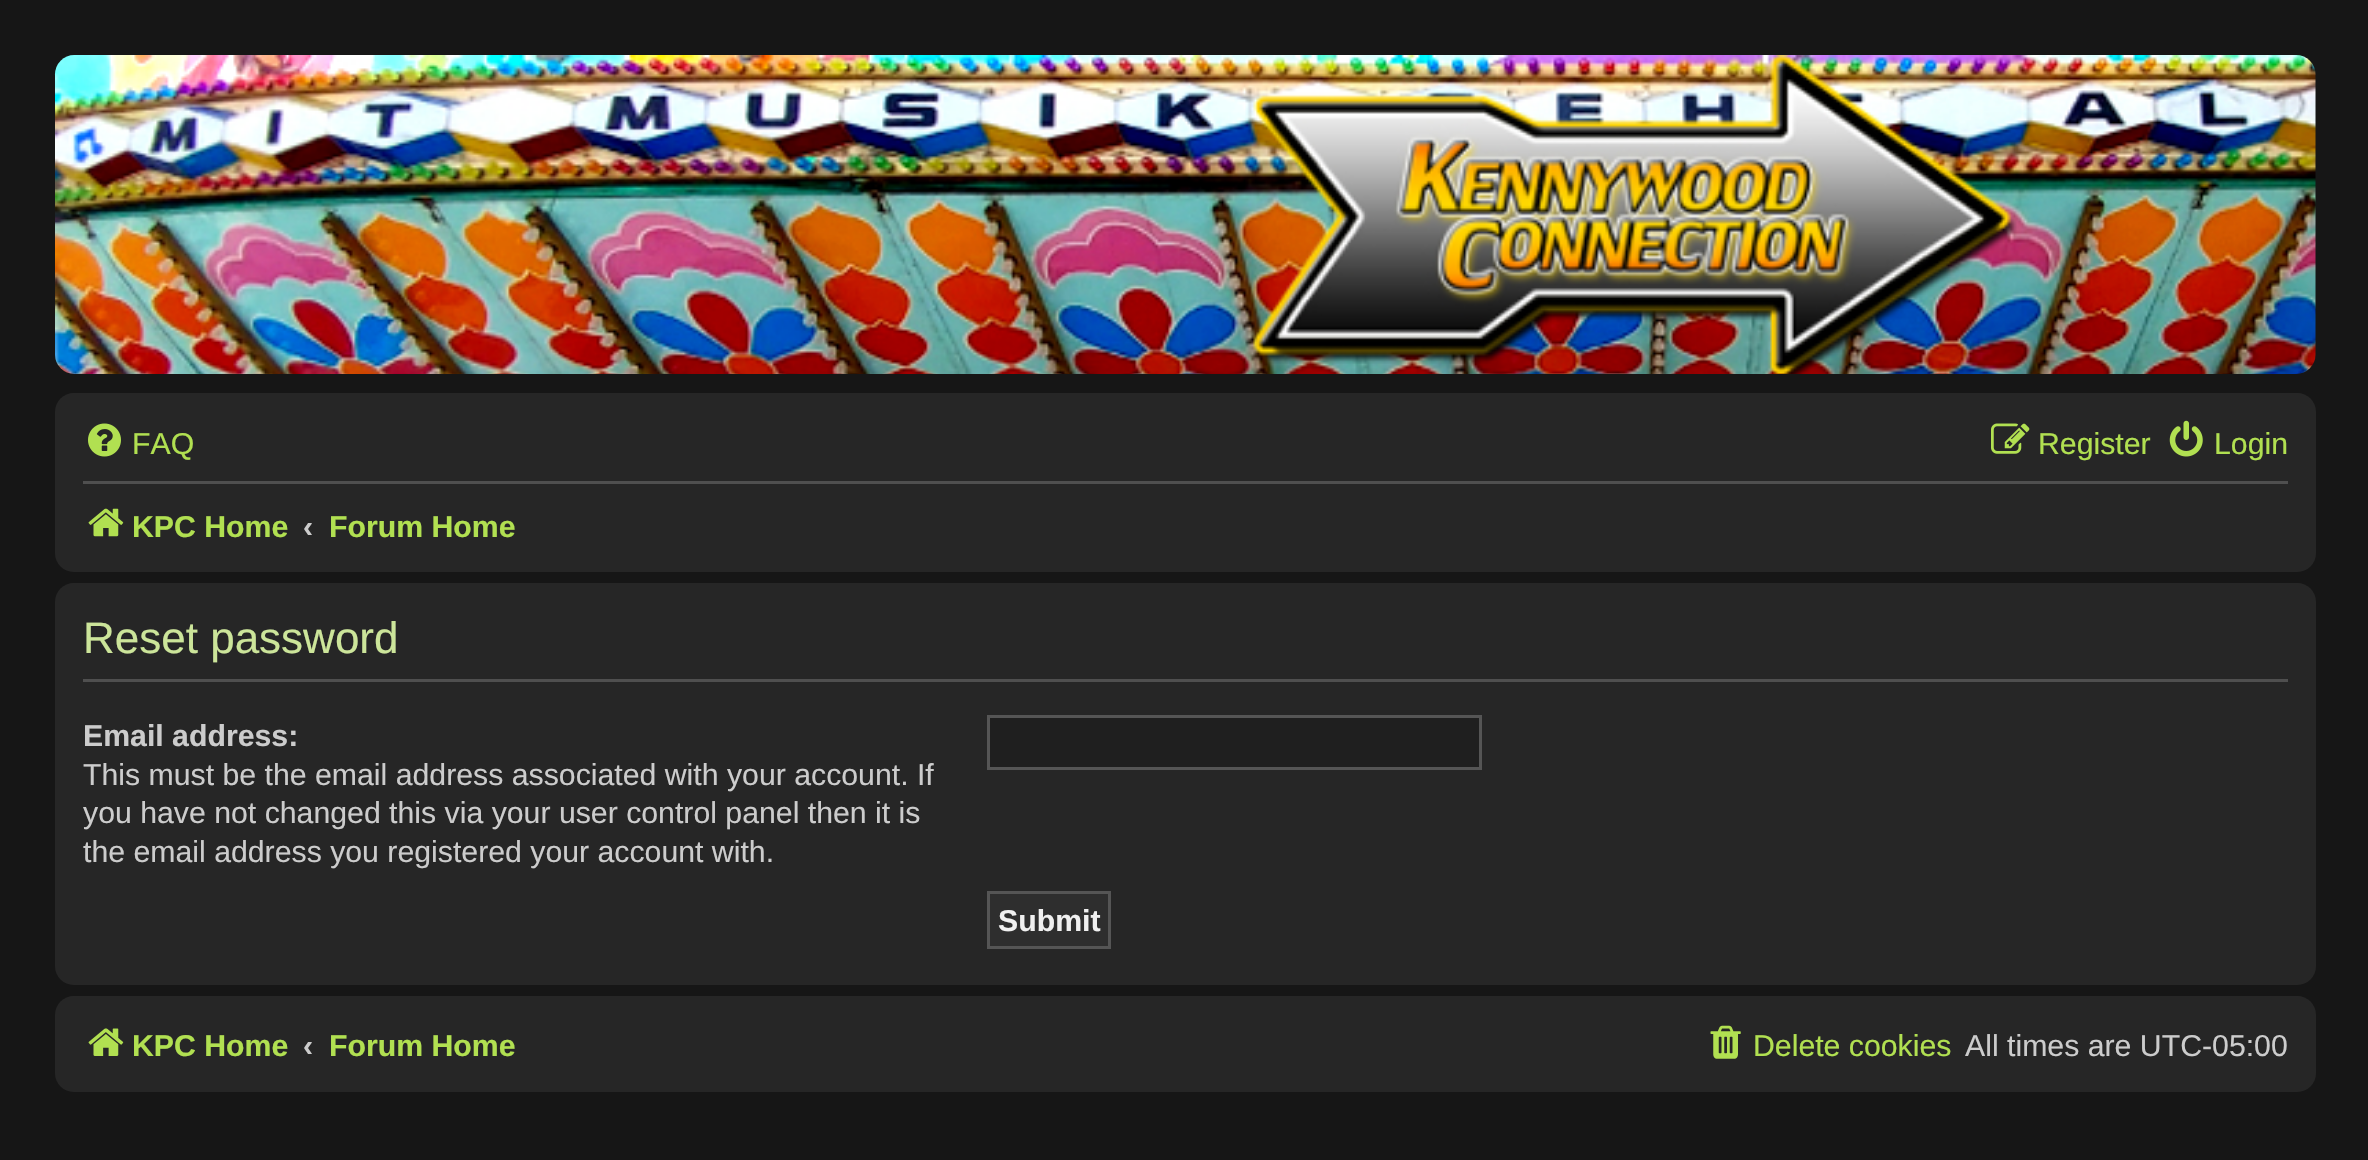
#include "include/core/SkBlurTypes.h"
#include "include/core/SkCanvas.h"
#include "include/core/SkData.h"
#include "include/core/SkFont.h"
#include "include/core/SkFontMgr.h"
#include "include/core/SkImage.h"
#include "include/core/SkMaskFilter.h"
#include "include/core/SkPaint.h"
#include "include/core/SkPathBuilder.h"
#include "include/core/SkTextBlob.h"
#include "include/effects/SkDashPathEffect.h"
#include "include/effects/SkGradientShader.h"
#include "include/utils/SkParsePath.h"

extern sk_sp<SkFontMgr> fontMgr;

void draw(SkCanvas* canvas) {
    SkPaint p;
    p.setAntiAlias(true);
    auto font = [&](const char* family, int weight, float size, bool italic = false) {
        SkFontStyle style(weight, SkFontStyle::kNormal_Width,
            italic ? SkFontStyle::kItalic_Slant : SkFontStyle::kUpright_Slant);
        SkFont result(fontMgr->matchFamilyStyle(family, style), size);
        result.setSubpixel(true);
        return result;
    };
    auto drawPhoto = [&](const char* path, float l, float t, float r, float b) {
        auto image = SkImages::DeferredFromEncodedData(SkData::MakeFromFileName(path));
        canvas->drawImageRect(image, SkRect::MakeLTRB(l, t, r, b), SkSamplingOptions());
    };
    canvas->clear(0xFF161616);
    drawPhoto("media/1.png", 54, 55, 2316, 374);
    p.setColor(0xFF262626);
    canvas->drawRoundRect(SkRect::MakeLTRB(55, 393, 2316, 572), 19, 19, p);
    drawPhoto("media/2.png", 88, 423, 121, 457);
    auto font1 = font("Liberation Sans", 400, 30.25f);
    p.setColor(0xFFB1E051);
    canvas->drawString("FAQ", 132, 454, font1, p);
    drawPhoto("media/3.png", 1991, 423, 2030, 454);
    canvas->drawString("Register", 2038, 454, font1, p);
    drawPhoto("media/4.png", 2169, 420, 2203, 457);
    canvas->drawString("Login", 2214, 454, font1, p);
    p.setColor(0xFF4F4F4F);
    canvas->drawRect(SkRect::MakeLTRB(83, 481, 2288, 484), p);
    drawPhoto("media/5.png", 88, 508, 124, 537);
    auto font2 = font("Liberation Sans", 700, 30.25f);
    p.setColor(0xFFB1E051);
    canvas->drawString("KPC Home", 132, 537, font2, p);
    p.setColor(0xFFCCCCCC);
    canvas->drawString("‹", 303, 537, font2, p);
    p.setColor(0xFFB1E051);
    canvas->drawString("Forum Home", 329, 537, font2, p);
    p.setColor(0xFF262626);
    canvas->drawRoundRect(SkRect::MakeLTRB(55, 583, 2316, 985), 19, 19, p);
    p.setColor(0xFF4F4F4F);
    canvas->drawRect(SkRect::MakeLTRB(83, 679, 2288, 682), p);
    auto font3 = font("Liberation Sans", 400, 44);
    p.setColor(0xFFCCE59A);
    canvas->drawString("Reset password", 83, 653, font3, p);
    p.setColor(0xFFCCCCCC);
    canvas->drawString("Email address:", 83, 746, font2, p);
    {
        const struct { const char* s; float x, y; } items[] = {
            {"This must be the email address associated with your account. If", 83, 785},
            {"you have not changed this via your user control panel then it is", 83, 823},
            {"the email address you registered your account with.", 83, 862},
        };
        for (auto [s, x, y] : items) {
            canvas->drawString(s, x, y, font1, p);
        }
    }
    p.setColor(0xFF1F1F1F);
    canvas->drawRect(SkRect::MakeLTRB(988.5f, 716.5f, 1480.5f, 768.5f), p);
    p.setStyle(SkPaint::kStroke_Style);
    p.setStrokeWidth(3);
    p.setColor(0xFF555555);
    canvas->drawRect(SkRect::MakeLTRB(988.5f, 716.5f, 1480.5f, 768.5f), p);
    p.setStyle(SkPaint::kFill_Style);
    p.setColor(0xFF2E2E2E);
    canvas->drawRect(SkRect::MakeLTRB(988.5f, 892.5f, 1109.5f, 947.5f), p);
    p.setStyle(SkPaint::kStroke_Style);
    p.setColor(0xFF555555);
    canvas->drawRect(SkRect::MakeLTRB(988.5f, 892.5f, 1109.5f, 947.5f), p);
    p.setStyle(SkPaint::kFill_Style);
    p.setColor(0xFFF0F0F0);
    canvas->drawString("Submit", 998, 931, font2, p);
    p.setColor(0xFF262626);
    canvas->drawRoundRect(SkRect::MakeLTRB(55, 996, 2316, 1092), 19, 19, p);
    drawPhoto("media/6.png", 88, 1028, 124, 1056);
    p.setColor(0xFFB1E051);
    canvas->drawString("KPC Home", 132, 1056, font2, p);
    p.setColor(0xFFCCCCCC);
    canvas->drawString("‹", 303, 1056, font2, p);
    p.setColor(0xFFB1E051);
    canvas->drawString("Forum Home", 329, 1056, font2, p);
    drawPhoto("media/7.png", 1710, 1025, 1741, 1059);
    canvas->drawString("Delete cookies", 1753, 1056, font1, p);
    p.setColor(0xFFCCCCCC);
    canvas->drawString("All times are UTC-05:00", 1965, 1056, font1, p);
}
